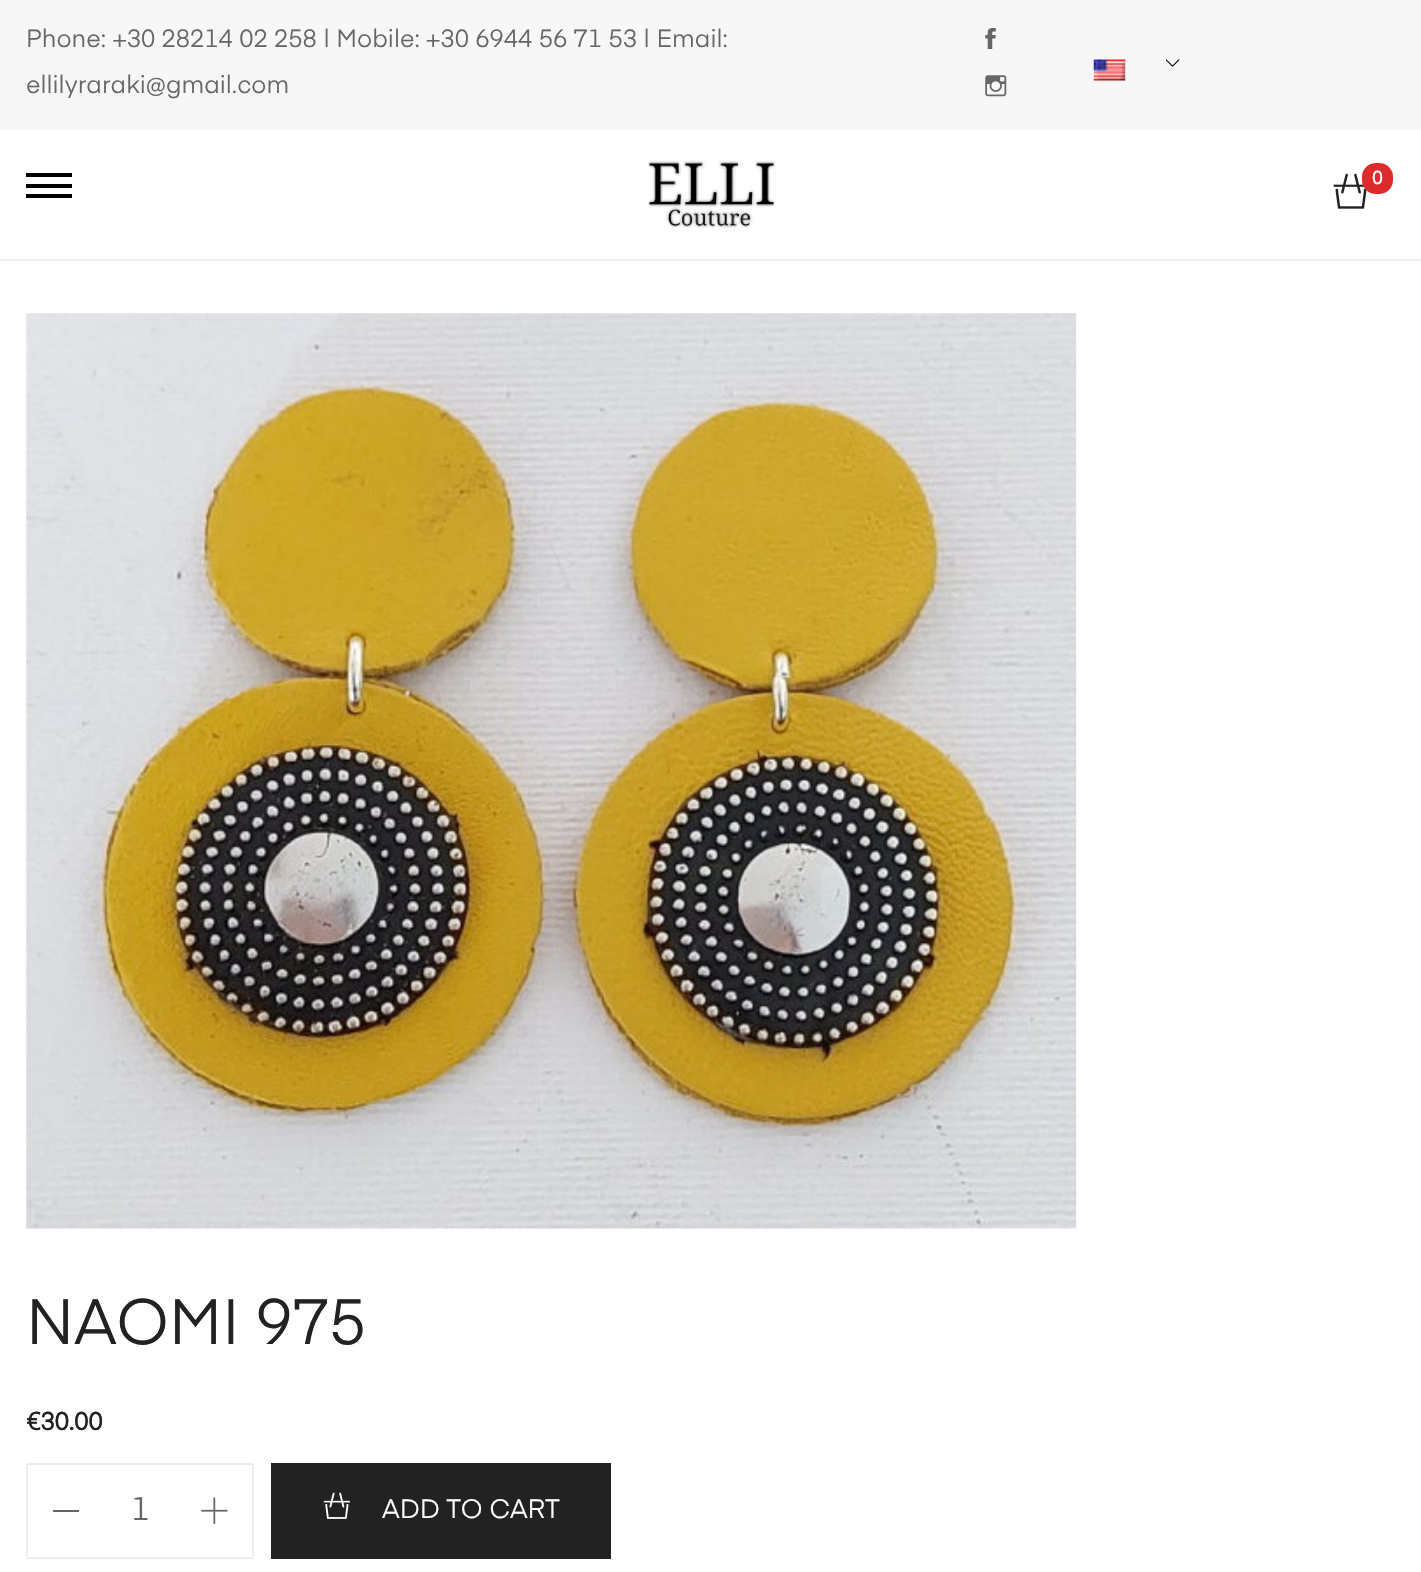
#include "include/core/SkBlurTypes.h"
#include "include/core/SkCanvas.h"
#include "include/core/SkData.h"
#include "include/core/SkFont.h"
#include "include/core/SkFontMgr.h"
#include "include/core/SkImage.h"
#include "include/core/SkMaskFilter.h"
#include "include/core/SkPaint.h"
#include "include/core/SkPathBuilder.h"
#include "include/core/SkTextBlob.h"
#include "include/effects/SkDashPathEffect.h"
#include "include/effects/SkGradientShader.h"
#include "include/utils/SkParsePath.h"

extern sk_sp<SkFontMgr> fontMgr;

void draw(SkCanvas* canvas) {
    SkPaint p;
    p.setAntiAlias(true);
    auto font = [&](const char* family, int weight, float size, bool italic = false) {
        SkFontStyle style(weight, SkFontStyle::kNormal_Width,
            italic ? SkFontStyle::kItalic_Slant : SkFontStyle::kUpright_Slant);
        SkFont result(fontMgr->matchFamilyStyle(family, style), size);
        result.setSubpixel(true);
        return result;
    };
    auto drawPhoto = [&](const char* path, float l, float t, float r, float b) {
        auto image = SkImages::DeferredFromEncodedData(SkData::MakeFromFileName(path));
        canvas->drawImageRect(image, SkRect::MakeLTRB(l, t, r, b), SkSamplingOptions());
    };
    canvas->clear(0xFFFFFFFF);
    p.setColor(0xFFF7F7F7);
    canvas->drawRect(SkRect::MakeLTRB(0, 0, 1421, 130), p);
    auto font1 = font("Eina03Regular", 400, 24.5f);
    p.setColor(0xFF666666);
    canvas->drawString("Phone: +30 28214 02 258 | Mobile: +30 6944 56 71 53 | Email:", 26, 47, font1, p);
    canvas->drawString("ellilyraraki@gmail.com", 26, 93, font1, p);
    drawPhoto("media/1.png", 985, 28, 996, 49);
    drawPhoto("media/2.png", 985, 75, 1007, 97);
    drawPhoto("media/3.png", 1166, 59, 1180, 67);
    drawPhoto("media/4.png", 1093, 59, 1126, 81);
    {
        const struct { float l, t, r, b; SkColor color; } items[] = {
            {0, 259, 1421, 261, 0xFFEEEEEE},
            {26, 184, 72, 188, 0xFF000000},
            {26, 173, 72, 177, 0xFF000000},
            {26, 194, 72, 198, 0xFF000000},
        };
        for (auto [l, t, r, b, color] : items) {
            p.setColor(color);
            canvas->drawRect(SkRect::MakeLTRB(l, t, r, b), p);
        }
    }
    drawPhoto("media/5.png", 647, 160, 776, 228);
    drawPhoto("media/6.png", 1333, 173, 1367, 209);
    p.setColor(0xFFDD2A2A);
    canvas->drawRoundRect(SkRect::MakeLTRB(1362, 163, 1393, 194), 14, 14, p);
    auto font2 = font("Eina03Regular", 700, 18);
    p.setColor(0xFFFFFFFF);
    canvas->drawString("0", 1372, 184, font2, p);
    drawPhoto("media/7.png", 26, 313, 1077, 1229);
    auto font3 = font("Eina03Regular", 400, 63);
    p.setColor(0xFF222222);
    canvas->drawString("NAOMI 975", 26, 1344, font3, p);
    auto font4 = font("Eina03Regular", 700, 24.5f);
    canvas->drawString("€30.00", 26, 1430, font4, p);
    p.setStyle(SkPaint::kStroke_Style);
    p.setStrokeWidth(2);
    p.setColor(0xFFEEEEEE);
    canvas->drawRect(SkRect::MakeLTRB(27, 1464, 253, 1558), p);
    p.setStyle(SkPaint::kFill_Style);
    p.setColor(0xFF666666);
    canvas->drawRect(SkRect::MakeLTRB(53, 1510, 79, 1512), p);
    auto font5 = font("Eina03Regular", 400, 32);
    canvas->drawString("1", 131, 1520, font5, p);
    drawPhoto("media/8.png", 201, 1497, 228, 1524);
    p.setColor(0xFF222222);
    canvas->drawRect(SkRect::MakeLTRB(271, 1463, 611, 1559), p);
    drawPhoto("media/9.png", 323, 1492, 350, 1519);
    auto font6 = font("Eina03Regular", 400, 26.25f);
    p.setColor(0xFFFFFFFF);
    canvas->drawString("ADD TO CART", 382, 1518, font6, p);
}
